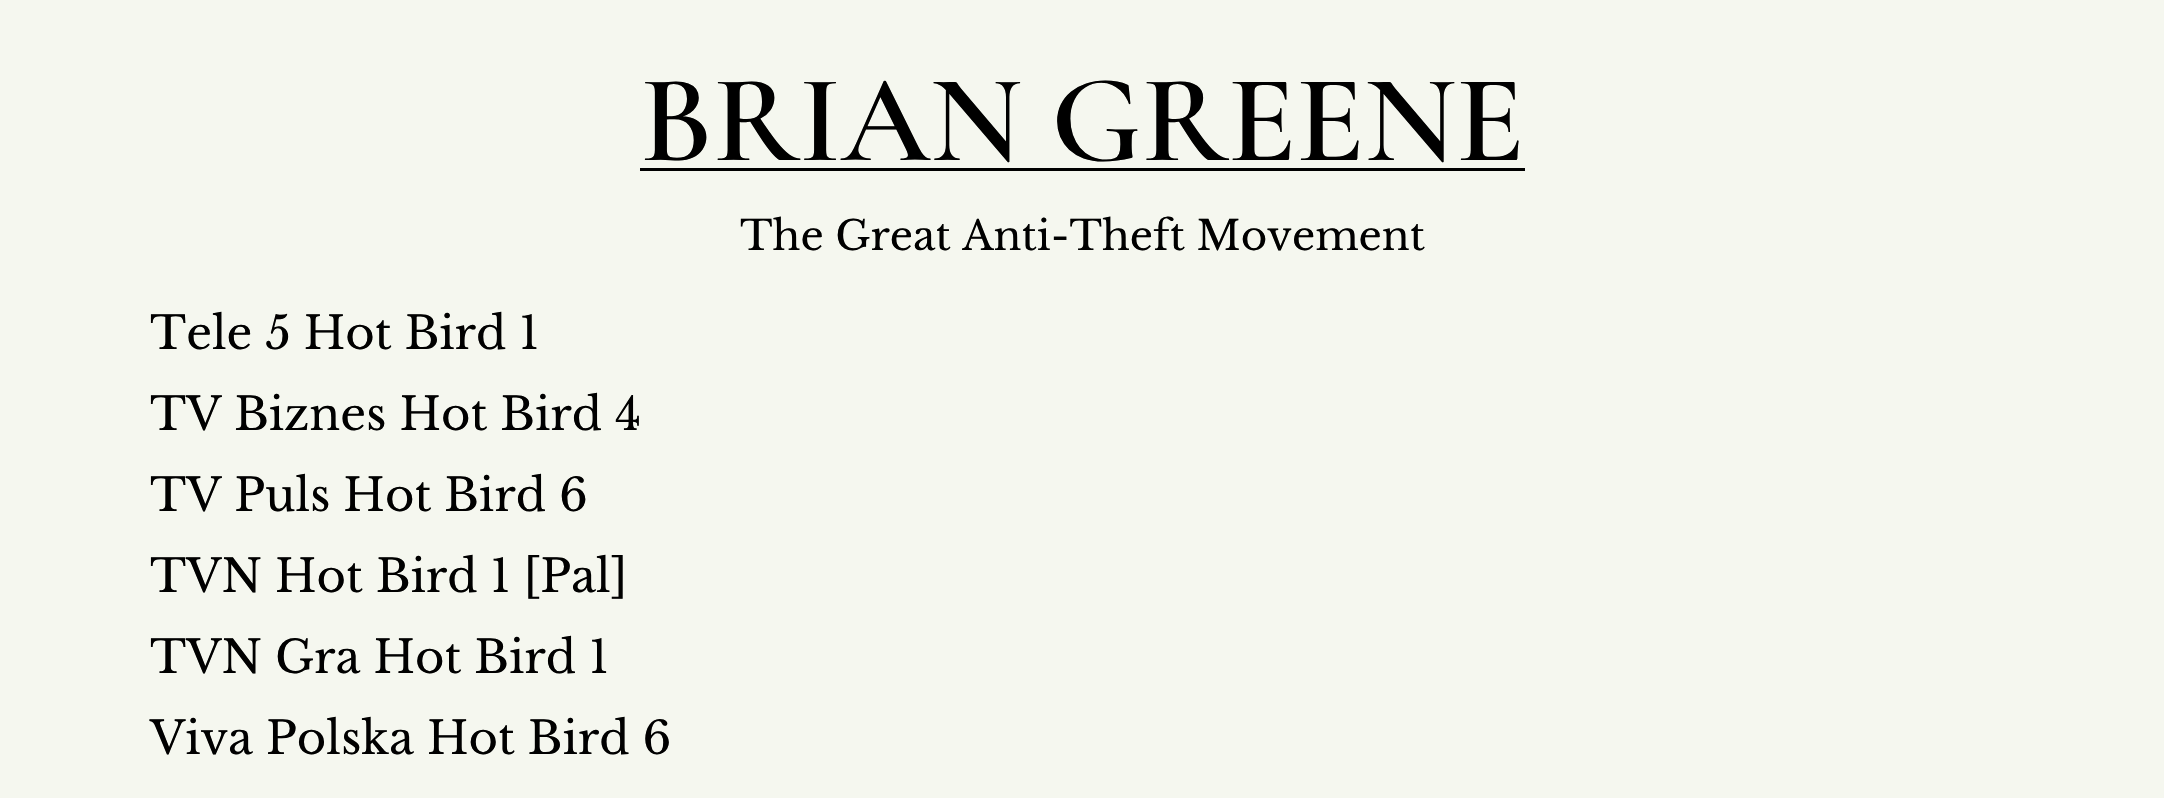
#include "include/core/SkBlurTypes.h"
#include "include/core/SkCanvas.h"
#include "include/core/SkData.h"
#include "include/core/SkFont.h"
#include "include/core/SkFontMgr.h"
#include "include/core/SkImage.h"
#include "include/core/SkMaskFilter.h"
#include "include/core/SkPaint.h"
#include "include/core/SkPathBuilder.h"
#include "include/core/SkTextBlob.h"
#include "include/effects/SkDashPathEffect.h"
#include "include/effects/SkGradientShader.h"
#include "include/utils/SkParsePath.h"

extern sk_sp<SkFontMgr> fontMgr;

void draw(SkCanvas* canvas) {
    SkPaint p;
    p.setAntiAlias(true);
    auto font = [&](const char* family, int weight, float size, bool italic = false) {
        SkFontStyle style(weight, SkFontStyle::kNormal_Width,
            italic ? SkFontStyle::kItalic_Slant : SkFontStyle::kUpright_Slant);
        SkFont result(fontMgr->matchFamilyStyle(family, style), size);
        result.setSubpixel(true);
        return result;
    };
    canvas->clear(0xFFF5F7EF);
    auto font1 = font("Cormorant Garamond", 600, 125);
    p.setColor(0xFF000000);
    canvas->drawString("BRIAN GREENE", 640, 160, font1, p);
    canvas->drawRect(SkRect::MakeLTRB(640, 168, 1525, 171), p);
    auto font2 = font("Libre Baskerville", 400, 40.5f);
    canvas->drawString("The Great Anti-Theft Movement", 740, 250, font2, p);
    auto font3 = font("Libre Baskerville", 400, 45);
    {
        const struct { const char* s; float x, y; } items[] = {
            {"Tele 5 Hot Bird 1", 150, 349},
            {"TV Biznes Hot Bird 4", 150, 430},
            {"TV Puls Hot Bird 6", 150, 511},
            {"TVN Hot Bird 1 [Pal]", 150, 592},
            {"TVN Gra Hot Bird 1", 150, 673},
            {"Viva Polska Hot Bird 6", 150, 754},
        };
        for (auto [s, x, y] : items) {
            canvas->drawString(s, x, y, font3, p);
        }
    }
}
